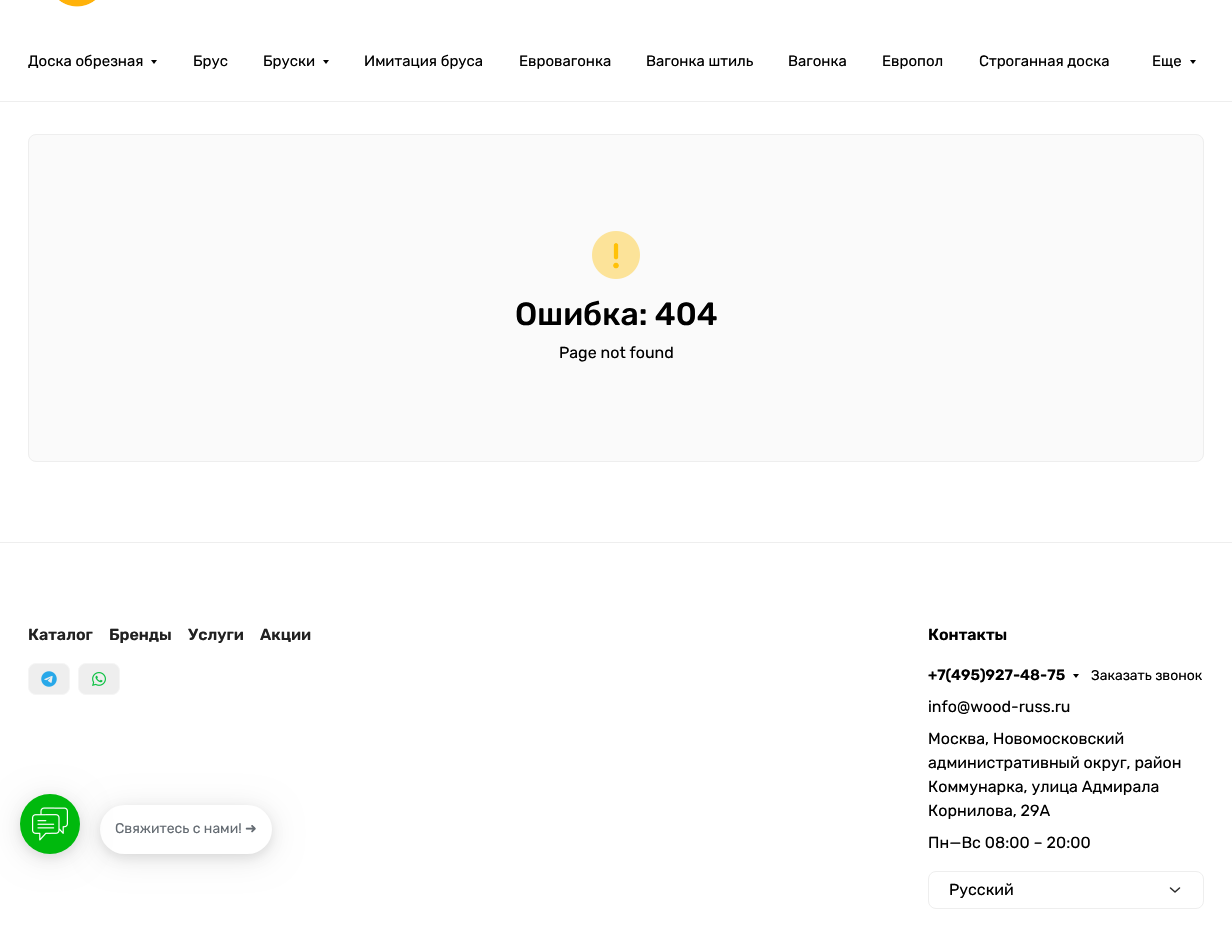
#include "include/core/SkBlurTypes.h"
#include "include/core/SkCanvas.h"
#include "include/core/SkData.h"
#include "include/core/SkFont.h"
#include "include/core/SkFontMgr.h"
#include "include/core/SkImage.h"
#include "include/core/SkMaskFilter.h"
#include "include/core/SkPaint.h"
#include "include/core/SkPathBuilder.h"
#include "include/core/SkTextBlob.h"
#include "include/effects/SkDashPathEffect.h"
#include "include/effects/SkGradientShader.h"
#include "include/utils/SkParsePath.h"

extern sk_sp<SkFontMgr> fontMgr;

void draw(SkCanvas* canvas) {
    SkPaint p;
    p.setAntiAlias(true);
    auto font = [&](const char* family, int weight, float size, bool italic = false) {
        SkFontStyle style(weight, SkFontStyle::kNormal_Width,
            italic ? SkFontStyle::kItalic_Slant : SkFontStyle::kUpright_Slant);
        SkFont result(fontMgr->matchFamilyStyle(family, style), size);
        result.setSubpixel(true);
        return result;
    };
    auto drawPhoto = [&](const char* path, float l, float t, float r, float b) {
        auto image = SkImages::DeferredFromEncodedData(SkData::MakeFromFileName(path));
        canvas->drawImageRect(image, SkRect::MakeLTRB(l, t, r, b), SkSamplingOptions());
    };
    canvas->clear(0xFFFFFFFF);
    p.setColor(0xFFEEEEEE);
    canvas->drawRect(SkRect::MakeLTRB(0, 101, 1232, 102), p);
    drawPhoto("media/1.png", 59, 0, 96, 7);
    auto font1 = font("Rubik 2", 300, 15);
    p.setColor(0xFF000000);
    canvas->drawString("Доска обрезная", 28, 66, font1, p);
    canvas->drawPath(SkPathBuilder().moveTo(151, 60).lineTo(157, 60).lineTo(154, 64).close().detach(), p);
    canvas->drawString("Брус", 193, 66, font1, p);
    canvas->drawString("Бруски", 263, 66, font1, p);
    canvas->drawPath(SkPathBuilder().moveTo(323, 60).lineTo(329, 60).lineTo(326, 64).close().detach(), p);
    {
        const struct { const char* s; float x, y; } items[] = {
            {"Имитация бруса", 364, 66},
            {"Евровагонка", 519, 66},
            {"Вагонка штиль", 646, 66},
            {"Вагонка", 788, 66},
            {"Европол", 882, 66},
            {"Строганная доска", 979, 66},
            {"Еще", 1152, 66},
        };
        for (auto [s, x, y] : items) {
            canvas->drawString(s, x, y, font1, p);
        }
    }
    canvas->drawPath(SkPathBuilder().moveTo(1190, 60).lineTo(1196, 60).lineTo(1193, 64).close().detach(), p);
    p.setColor(0xFFFAFAFA);
    canvas->drawRoundRect(SkRect::MakeLTRB(28.5f, 134.5f, 1203.5f, 461.5f), 7.5f, 7.5f, p);
    p.setStyle(SkPaint::kStroke_Style);
    p.setStrokeWidth(1);
    p.setColor(0xFFEEEEEE);
    canvas->drawRoundRect(SkRect::MakeLTRB(28.5f, 134.5f, 1203.5f, 461.5f), 7.5f, 7.5f, p);
    drawPhoto("media/2.png", 592, 231, 640, 279);
    auto font2 = font("Rubik", 300, 32);
    p.setStyle(SkPaint::kFill_Style);
    p.setColor(0xFF000000);
    canvas->drawString("Ошибка: 404", 515, 325, font2, p);
    auto font3 = font("Rubik 2", 300, 16);
    canvas->drawString("Page not found", 559, 358, font3, p);
    p.setColor(0xFFEEEEEE);
    canvas->drawRect(SkRect::MakeLTRB(0, 542, 1232, 543), p);
    auto font4 = font("Rubik", 600, 16);
    p.setColor(0xFF212121);
    {
        const struct { const char* s; float x, y; } items[] = {
            {"Каталог", 28, 640},
            {"Бренды", 109, 640},
            {"Услуги", 188, 640},
            {"Акции", 260, 640},
        };
        for (auto [s, x, y] : items) {
            canvas->drawString(s, x, y, font4, p);
        }
    }
    p.setColor(0xFFEEEEEE);
    canvas->drawRoundRect(SkRect::MakeLTRB(28.5f, 663.5f, 69.5f, 694.5f), 7.5f, 7.5f, p);
    p.setStyle(SkPaint::kStroke_Style);
    p.setColor(0xFFF5F5F5);
    canvas->drawRoundRect(SkRect::MakeLTRB(28.5f, 663.5f, 69.5f, 694.5f), 7.5f, 7.5f, p);
    drawPhoto("media/3.png", 41, 671, 57, 687);
    p.setStyle(SkPaint::kFill_Style);
    p.setColor(0xFFEEEEEE);
    canvas->drawRoundRect(SkRect::MakeLTRB(78.5f, 663.5f, 119.5f, 694.5f), 7.5f, 7.5f, p);
    p.setStyle(SkPaint::kStroke_Style);
    p.setColor(0xFFF5F5F5);
    canvas->drawRoundRect(SkRect::MakeLTRB(78.5f, 663.5f, 119.5f, 694.5f), 7.5f, 7.5f, p);
    drawPhoto("media/4.png", 92, 672, 106, 686);
    p.setStyle(SkPaint::kFill_Style);
    p.setColor(0xFF000000);
    canvas->drawString("Контакты", 928, 640, font4, p);
    auto font5 = font("Rubik", 600, 15);
    canvas->drawString("+7(495)927-48-75", 928, 680, font5, p);
    canvas->drawPath(SkPathBuilder().moveTo(1073, 674).lineTo(1079, 674).lineTo(1076, 678).close().detach(), p);
    auto font6 = font("Rubik 2", 300, 14);
    canvas->drawString("Заказать звонок", 1091, 680, font6, p);
    {
        const struct { const char* s; float x, y; } items[] = {
            {"info@wood-russ.ru", 928, 712},
            {"Москва, Новомосковский", 928, 744},
            {"административный округ, район", 928, 768},
            {"Коммунарка, улица Адмирала", 928, 792},
            {"Корнилова, 29А", 928, 816},
            {"Пн—Вс 08:00 – 20:00", 928, 848},
        };
        for (auto [s, x, y] : items) {
            canvas->drawString(s, x, y, font3, p);
        }
    }
    p.setStyle(SkPaint::kStroke_Style);
    p.setStrokeWidth(1.5f);
    p.setStrokeCap(SkPaint::kRound_Cap);
    p.setStrokeJoin(SkPaint::kRound_Join);
    p.setColor(0xFF2A2A2A);
    canvas->drawPath(SkPathBuilder().moveTo(1170.5f, 888).lineTo(1175, 892).lineTo(1179.5f, 888).detach(), p);
    p.setStrokeWidth(1);
    p.setStrokeCap(SkPaint::kButt_Cap);
    p.setStrokeJoin(SkPaint::kMiter_Join);
    p.setColor(0xFFEEEEEE);
    canvas->drawRoundRect(SkRect::MakeLTRB(928.5f, 871.5f, 1203.5f, 908.5f), 7.5f, 7.5f, p);
    p.setStyle(SkPaint::kFill_Style);
    p.setColor(0xFF000000);
    canvas->drawString("Русский", 949, 895, font3, p);
    p.setColor(0x1A000000);
    p.setMaskFilter(SkMaskFilter::MakeBlur(kNormal_SkBlurStyle, 15));
    canvas->drawRoundRect(SkRect::MakeLTRB(100, 809, 272, 858), 24.5f, 24.5f, p);
    p.setMaskFilter(nullptr);
    p.setColor(0x14000000);
    p.setMaskFilter(SkMaskFilter::MakeBlur(kNormal_SkBlurStyle, 5));
    canvas->drawRoundRect(SkRect::MakeLTRB(100, 809, 272, 858), 24.5f, 24.5f, p);
    p.setMaskFilter(nullptr);
    p.setColor(0xFFFFFFFF);
    canvas->drawRoundRect(SkRect::MakeLTRB(100, 805, 272, 854), 24.5f, 24.5f, p);
    p.setColor(0x1A000000);
    p.setMaskFilter(SkMaskFilter::MakeBlur(kNormal_SkBlurStyle, 15));
    canvas->drawRoundRect(SkRect::MakeLTRB(20, 798, 80, 858), 30, 30, p);
    p.setMaskFilter(nullptr);
    p.setColor(0x14000000);
    p.setMaskFilter(SkMaskFilter::MakeBlur(kNormal_SkBlurStyle, 5));
    canvas->drawRoundRect(SkRect::MakeLTRB(20, 798, 80, 858), 30, 30, p);
    p.setMaskFilter(nullptr);
    p.setColor(0xFF00B90D);
    canvas->drawCircle(50, 824, 30, p);
    drawPhoto("media/5.png", 32, 807, 68, 841);
    p.setColor(0xFF646B72);
    canvas->drawString("Свяжитесь с нами!", 115, 833, font6, p);
    auto font7 = font("DejaVu Sans", 400, 14);
    canvas->drawString("➜", 245, 833, font7, p);
}
